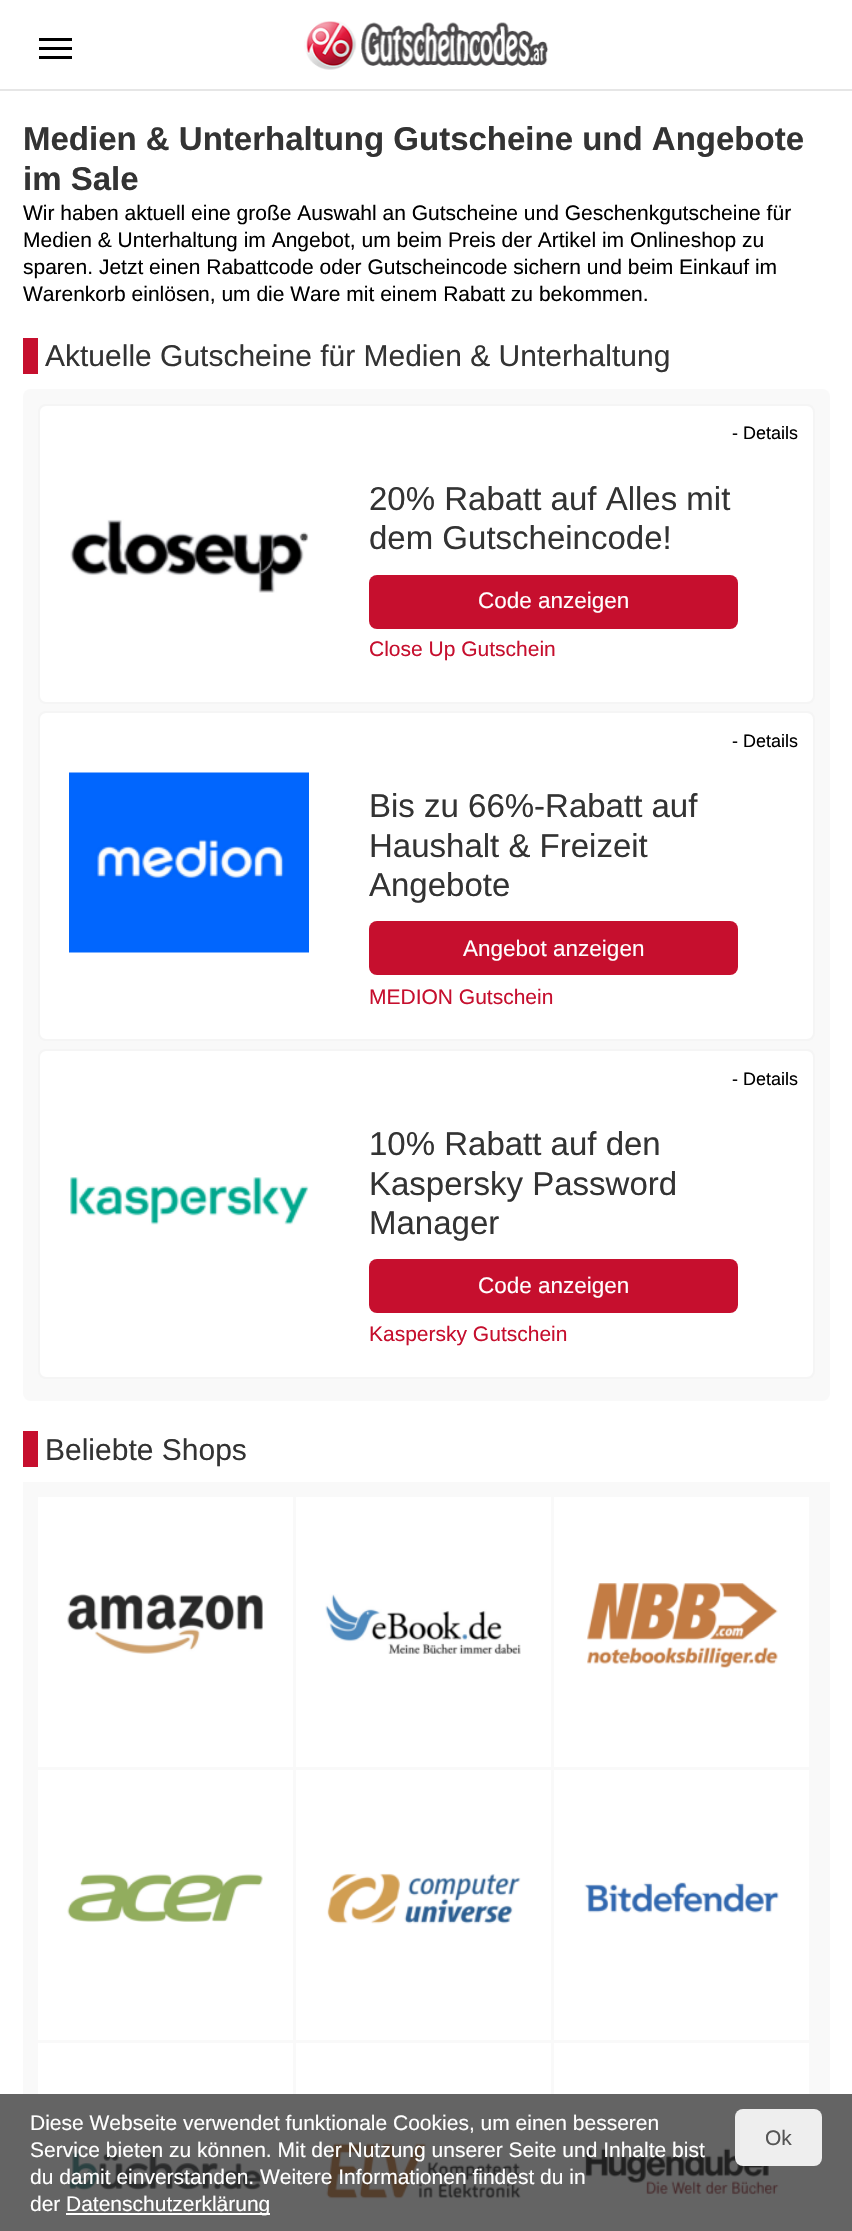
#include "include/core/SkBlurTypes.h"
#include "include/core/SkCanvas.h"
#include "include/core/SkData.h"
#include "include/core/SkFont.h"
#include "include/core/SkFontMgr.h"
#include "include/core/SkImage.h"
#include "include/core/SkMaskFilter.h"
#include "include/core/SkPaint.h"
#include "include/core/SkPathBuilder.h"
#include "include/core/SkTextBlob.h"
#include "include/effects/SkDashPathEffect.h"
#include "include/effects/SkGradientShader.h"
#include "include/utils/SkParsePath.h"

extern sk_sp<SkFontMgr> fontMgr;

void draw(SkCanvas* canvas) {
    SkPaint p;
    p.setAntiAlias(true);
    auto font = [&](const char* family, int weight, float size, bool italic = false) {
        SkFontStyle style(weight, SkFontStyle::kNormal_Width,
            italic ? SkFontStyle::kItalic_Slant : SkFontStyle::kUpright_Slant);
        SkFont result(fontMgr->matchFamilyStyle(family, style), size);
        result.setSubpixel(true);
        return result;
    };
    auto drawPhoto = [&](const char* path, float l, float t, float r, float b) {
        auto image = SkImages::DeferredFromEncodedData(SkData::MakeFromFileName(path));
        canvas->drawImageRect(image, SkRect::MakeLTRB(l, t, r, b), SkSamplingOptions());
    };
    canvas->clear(0xFFFFFFFF);
    {
        const struct { float l, t, r, b; SkColor color; } items[] = {
            {0, 89, 852, 91, 0xFFE6E6E6},
            {39, 38, 72, 41, 0xFF000000},
            {39, 47, 72, 50, 0xFF000000},
            {39, 56, 72, 59, 0xFF000000},
        };
        for (auto [l, t, r, b, color] : items) {
            p.setColor(color);
            canvas->drawRect(SkRect::MakeLTRB(l, t, r, b), p);
        }
    }
    drawPhoto("media/1.png", 304, 21, 549, 70);
    p.setColor(0xFF646464);
    canvas->drawRect(SkRect::MakeLTRB(0, 2094, 852, 2231), p);
    auto font1 = font("Liberation Sans", 700, 33);
    p.setColor(0xFF333333);
    canvas->drawString("Medien & Unterhaltung Gutscheine und Angebote", 23, 150, font1, p);
    canvas->drawString("im Sale", 23, 190, font1, p);
    auto font2 = font("Liberation Sans", 400, 21);
    p.setColor(0xFF000000);
    {
        const struct { const char* s; float x, y; } items[] = {
            {"Wir haben aktuell eine große Auswahl an Gutscheine und Geschenkgutscheine für", 23, 220},
            {"Medien & Unterhaltung im Angebot, um beim Preis der Artikel im Onlineshop zu", 23, 247},
            {"sparen. Jetzt einen Rabattcode oder Gutscheincode sichern und beim Einkauf im", 23, 274},
            {"Warenkorb einlösen, um die Ware mit einem Rabatt zu bekommen.", 23, 301},
        };
        for (auto [s, x, y] : items) {
            canvas->drawString(s, x, y, font2, p);
        }
    }
    p.setColor(0xFFC60F2E);
    canvas->drawRect(SkRect::MakeLTRB(23, 338, 38, 374), p);
    auto font3 = font("Liberation Sans", 400, 30);
    p.setColor(0xFF333333);
    canvas->drawString("Aktuelle Gutscheine für Medien & Unterhaltung", 45, 366, font3, p);
    p.setColor(0xFFF9F9F9);
    canvas->drawRoundRect(SkRect::MakeLTRB(23, 389, 830, 1401), 8, 8, p);
    p.setColor(0xFFFFFFFF);
    canvas->drawRoundRect(SkRect::MakeLTRB(39, 405, 814, 703), 7, 7, p);
    p.setStyle(SkPaint::kStroke_Style);
    p.setStrokeWidth(2);
    p.setColor(0xFFF5F5F5);
    canvas->drawRoundRect(SkRect::MakeLTRB(39, 405, 814, 703), 7, 7, p);
    auto font4 = font("Liberation Sans", 400, 18);
    p.setStyle(SkPaint::kFill_Style);
    p.setColor(0xFF000000);
    canvas->drawString("- Details", 732, 439, font4, p);
    drawPhoto("media/2.png", 70, 519, 309, 593);
    auto font5 = font("Liberation Sans", 400, 33);
    p.setColor(0xFF333333);
    canvas->drawString("20% Rabatt auf Alles mit", 369, 510, font5, p);
    canvas->drawString("dem Gutscheincode!", 369, 549, font5, p);
    p.setColor(0xFFC60F2E);
    canvas->drawRoundRect(SkRect::MakeLTRB(369, 575, 738, 629), 8, 8, p);
    auto font6 = font("Liberation Sans", 400, 22.5f);
    p.setColor(0xFFFFFFFF);
    canvas->drawString("Code anzeigen", 478, 608, font6, p);
    p.setColor(0xFFC60F2E);
    canvas->drawString("Close Up Gutschein", 369, 656, font2, p);
    p.setColor(0xFFFFFFFF);
    canvas->drawRoundRect(SkRect::MakeLTRB(39, 712, 814, 1040), 7, 7, p);
    p.setStyle(SkPaint::kStroke_Style);
    p.setColor(0xFFF5F5F5);
    canvas->drawRoundRect(SkRect::MakeLTRB(39, 712, 814, 1040), 7, 7, p);
    p.setStyle(SkPaint::kFill_Style);
    p.setColor(0xFF000000);
    canvas->drawString("- Details", 732, 747, font4, p);
    drawPhoto("media/3.png", 69, 772, 309, 953);
    p.setColor(0xFF333333);
    {
        const struct { const char* s; float x, y; } items[] = {
            {"Bis zu 66%-Rabatt auf", 369, 817},
            {"Haushalt & Freizeit", 369, 857},
            {"Angebote", 369, 896},
        };
        for (auto [s, x, y] : items) {
            canvas->drawString(s, x, y, font5, p);
        }
    }
    p.setColor(0xFFC60F2E);
    canvas->drawRoundRect(SkRect::MakeLTRB(369, 921, 738, 975), 8, 8, p);
    p.setColor(0xFFFFFFFF);
    canvas->drawString("Angebot anzeigen", 463, 956, font6, p);
    p.setColor(0xFFC60F2E);
    canvas->drawString("MEDION Gutschein", 369, 1004, font2, p);
    p.setColor(0xFFFFFFFF);
    canvas->drawRoundRect(SkRect::MakeLTRB(39, 1050, 814, 1378), 7, 7, p);
    p.setStyle(SkPaint::kStroke_Style);
    p.setColor(0xFFF5F5F5);
    canvas->drawRoundRect(SkRect::MakeLTRB(39, 1050, 814, 1378), 7, 7, p);
    p.setStyle(SkPaint::kFill_Style);
    p.setColor(0xFF000000);
    canvas->drawString("- Details", 732, 1085, font4, p);
    drawPhoto("media/4.png", 70, 1177, 309, 1225);
    p.setColor(0xFF333333);
    {
        const struct { const char* s; float x, y; } items[] = {
            {"10% Rabatt auf den", 369, 1155},
            {"Kaspersky Password", 369, 1195},
            {"Manager", 369, 1234},
        };
        for (auto [s, x, y] : items) {
            canvas->drawString(s, x, y, font5, p);
        }
    }
    p.setColor(0xFFC60F2E);
    canvas->drawRoundRect(SkRect::MakeLTRB(369, 1259, 738, 1313), 8, 8, p);
    p.setColor(0xFFFFFFFF);
    canvas->drawString("Code anzeigen", 478, 1293, font6, p);
    p.setColor(0xFFC60F2E);
    canvas->drawString("Kaspersky Gutschein", 369, 1341, font2, p);
    canvas->drawRect(SkRect::MakeLTRB(23, 1431, 38, 1467), p);
    p.setColor(0xFF333333);
    canvas->drawString("Beliebte Shops", 45, 1460, font3, p);
    p.setColor(0xFFF9F9F9);
    canvas->drawRect(SkRect::MakeLTRB(23, 1482, 830, 2094), p);
    p.setColor(0xFFFFFFFF);
    canvas->drawRect(SkRect::MakeLTRB(38, 1497, 293, 1767), p);
    drawPhoto("media/5.png", 67, 1594, 263, 1654);
    canvas->drawRect(SkRect::MakeLTRB(296, 1497, 551, 1767), p);
    drawPhoto("media/6.png", 325, 1594, 521, 1654);
    canvas->drawRect(SkRect::MakeLTRB(554, 1497, 809, 1767), p);
    drawPhoto("media/7.png", 587, 1583, 778, 1668);
    canvas->drawRect(SkRect::MakeLTRB(38, 1770, 293, 2040), p);
    drawPhoto("media/8.png", 67, 1874, 263, 1922);
    canvas->drawRect(SkRect::MakeLTRB(296, 1770, 551, 2040), p);
    drawPhoto("media/9.png", 327, 1873, 521, 1924);
    canvas->drawRect(SkRect::MakeLTRB(554, 1770, 809, 2040), p);
    drawPhoto("media/10.png", 584, 1882, 779, 1913);
    canvas->drawRect(SkRect::MakeLTRB(38, 2043, 293, 2094), p);
    drawPhoto("media/11.png", 69, 2152, 262, 2191);
    canvas->drawRect(SkRect::MakeLTRB(296, 2043, 551, 2094), p);
    drawPhoto("media/12.png", 326, 2143, 521, 2199);
    canvas->drawRect(SkRect::MakeLTRB(554, 2043, 809, 2094), p);
    drawPhoto("media/13.png", 584, 2148, 779, 2195);
    {
        const struct { const char* s; float x, y; } items[] = {
            {"Diese Webseite verwendet funktionale Cookies, um einen besseren", 30, 2130},
            {"Service bieten zu können. Mit der Nutzung unserer Seite und Inhalte bist", 30, 2157},
            {"du damit einverstanden. Weitere Informationen findest du in", 30, 2184},
            {"der", 30, 2211},
        };
        for (auto [s, x, y] : items) {
            canvas->drawString(s, x, y, font2, p);
        }
    }
    canvas->drawRect(SkRect::MakeLTRB(66, 2213, 270, 2215), p);
    canvas->drawString("Datenschutzerklärung", 66, 2211, font2, p);
    p.setColor(0xFFEEEEEE);
    canvas->drawRoundRect(SkRect::MakeLTRB(735, 2109, 822, 2166), 8, 8, p);
    p.setColor(0xFF555555);
    canvas->drawString("Ok", 765, 2145, font2, p);
}
